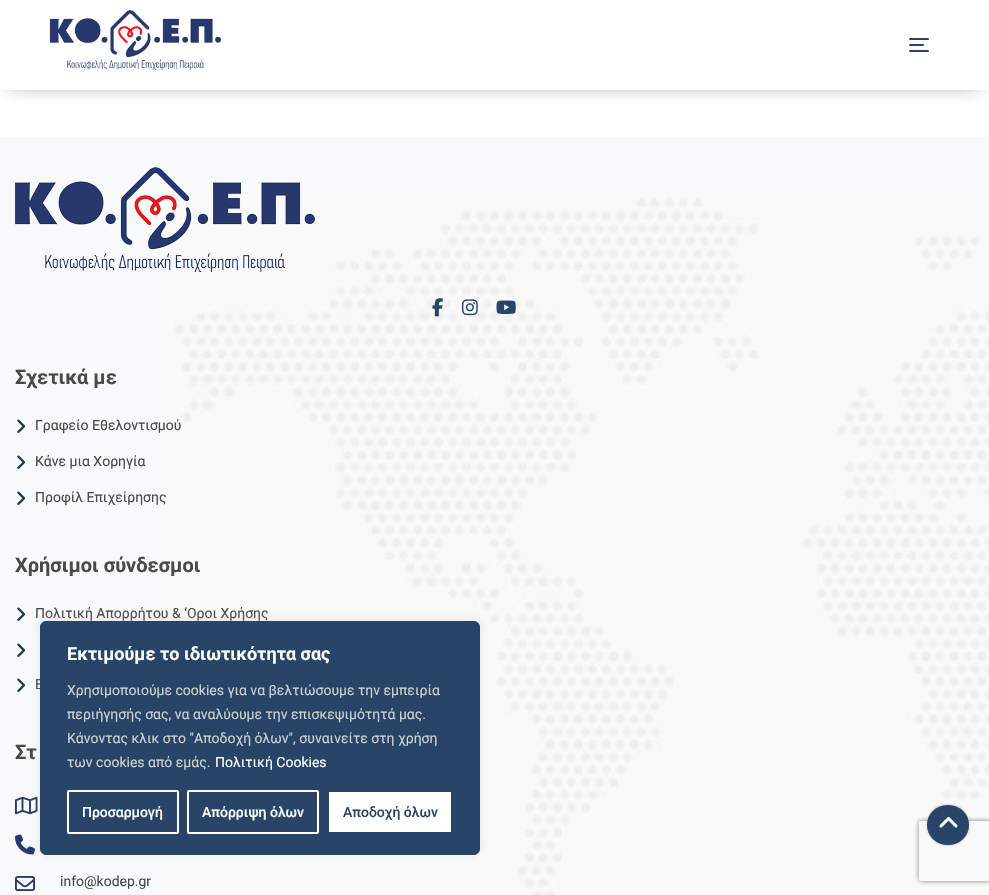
#include "include/core/SkBlurTypes.h"
#include "include/core/SkCanvas.h"
#include "include/core/SkData.h"
#include "include/core/SkFont.h"
#include "include/core/SkFontMgr.h"
#include "include/core/SkImage.h"
#include "include/core/SkMaskFilter.h"
#include "include/core/SkPaint.h"
#include "include/core/SkPathBuilder.h"
#include "include/core/SkTextBlob.h"
#include "include/effects/SkDashPathEffect.h"
#include "include/effects/SkGradientShader.h"
#include "include/utils/SkParsePath.h"

extern sk_sp<SkFontMgr> fontMgr;

void draw(SkCanvas* canvas) {
    SkPaint p;
    p.setAntiAlias(true);
    auto font = [&](const char* family, int weight, float size, bool italic = false) {
        SkFontStyle style(weight, SkFontStyle::kNormal_Width,
            italic ? SkFontStyle::kItalic_Slant : SkFontStyle::kUpright_Slant);
        SkFont result(fontMgr->matchFamilyStyle(family, style), size);
        result.setSubpixel(true);
        return result;
    };
    auto drawPhoto = [&](const char* path, float l, float t, float r, float b) {
        auto image = SkImages::DeferredFromEncodedData(SkData::MakeFromFileName(path));
        canvas->drawImageRect(image, SkRect::MakeLTRB(l, t, r, b), SkSamplingOptions());
    };
    canvas->clear(0xFFFFFFFF);
    p.setColor(0xCC000000);
    p.setMaskFilter(SkMaskFilter::MakeBlur(kNormal_SkBlurStyle, 10));
    canvas->drawRect(SkRect::MakeLTRB(10, 10, 979, 80), p);
    p.setMaskFilter(nullptr);
    p.setColor(0xFFFFFFFF);
    canvas->drawRect(SkRect::MakeLTRB(0, 0, 989, 90), p);
    drawPhoto("media/1.png", 49, 10, 221, 71);
    p.setColor(0xFF284567);
    canvas->drawRoundRect(SkRect::MakeLTRB(909, 38, 929, 40), 1, 1, p);
    canvas->drawRoundRect(SkRect::MakeLTRB(909, 44, 924, 46), 1, 1, p);
    canvas->drawRoundRect(SkRect::MakeLTRB(909, 50, 929, 52), 1, 1, p);
    p.setColor(0xFFF7F9FB);
    canvas->drawRect(SkRect::MakeLTRB(0, 137, 989, 895), p);
    drawPhoto("media/2.png", 171, 197, 989, 895);
    drawPhoto("media/3.png", 15, 167, 315, 272);
    drawPhoto("media/4.png", 432, 298, 443, 317);
    drawPhoto("media/5.png", 462, 299, 478, 316);
    drawPhoto("media/6.png", 496, 300, 516, 314);
    auto font1 = font("Roboto", 700, 20);
    p.setColor(0xFF4A4A4A);
    canvas->drawString("Σχετικά με", 15, 384, font1, p);
    drawPhoto("media/7.png", 17, 419, 26, 433);
    auto font2 = font("Roboto", 400, 14);
    canvas->drawString("Γραφείο Εθελοντισμού", 35, 430, font2, p);
    drawPhoto("media/7.png", 17, 455, 26, 469);
    canvas->drawString("Κάνε μια Χορηγία", 35, 466, font2, p);
    drawPhoto("media/7.png", 17, 491, 26, 505);
    canvas->drawString("Προφίλ Επιχείρησης", 35, 502, font2, p);
    canvas->drawString("Χρήσιμοι σύνδεσμοι", 15, 572, font1, p);
    drawPhoto("media/7.png", 17, 607, 26, 621);
    canvas->drawString("Πολιτική Απορρήτου & ‘Οροι Χρήσης", 35, 618, font2, p);
    drawPhoto("media/7.png", 17, 643, 26, 657);
    drawPhoto("media/7.png", 17, 678, 26, 692);
    canvas->drawString("Ε", 35, 689, font2, p);
    canvas->drawString("Στ", 15, 759, font1, p);
    drawPhoto("media/8.png", 15, 796, 38, 815);
    drawPhoto("media/9.png", 15, 834, 35, 855);
    drawPhoto("media/10.png", 15, 876, 35, 891);
    canvas->drawString("info@kodep.gr", 60, 886, font2, p);
    p.setColor(0x4DACABAB);
    p.setMaskFilter(SkMaskFilter::MakeBlur(kNormal_SkBlurStyle, 5));
    canvas->drawRoundRect(SkRect::MakeLTRB(40, 620, 480, 854), 6, 6, p);
    p.setMaskFilter(nullptr);
    p.setColor(0xFF284567);
    canvas->drawRoundRect(SkRect::MakeLTRB(40.5f, 621.5f, 479.5f, 854.5f), 5.5f, 5.5f, p);
    p.setStyle(SkPaint::kStroke_Style);
    p.setStrokeWidth(1);
    canvas->drawRoundRect(SkRect::MakeLTRB(40.5f, 621.5f, 479.5f, 854.5f), 5.5f, 5.5f, p);
    auto font3 = font("Roboto", 700, 18);
    p.setStyle(SkPaint::kFill_Style);
    p.setColor(0xFFFFFFFF);
    canvas->drawString("Εκτιμούμε το ιδιωτικότητα σας", 67, 660, font3, p);
    p.setColor(0xFFD0D0D0);
    {
        const struct { const char* s; float x, y; } items[] = {
            {"Χρησιμοποιούμε cookies για να βελτιώσουμε την εμπειρία", 67, 695},
            {"περιήγησής σας, να αναλύουμε την επισκεψιμότητά μας.", 67, 719},
            {"Κάνοντας κλικ στο \"Αποδοχή όλων\", συναινείτε στη χρήση", 67, 743},
            {"των cookies από εμάς.", 67, 767},
        };
        for (auto [s, x, y] : items) {
            canvas->drawString(s, x, y, font2, p);
        }
    }
    p.setColor(0xFFFFFFFF);
    canvas->drawString("Πολιτική Cookies", 215, 767, font2, p);
    p.setStyle(SkPaint::kStroke_Style);
    p.setStrokeWidth(2);
    canvas->drawRoundRect(SkRect::MakeLTRB(68, 791, 178, 833), 1, 1, p);
    auto font4 = font("Roboto", 500, 14);
    p.setStyle(SkPaint::kFill_Style);
    canvas->drawString("Προσαρμογή", 82, 817, font4, p);
    p.setStyle(SkPaint::kStroke_Style);
    canvas->drawRoundRect(SkRect::MakeLTRB(188, 791, 318, 833), 1, 1, p);
    p.setStyle(SkPaint::kFill_Style);
    canvas->drawString("Απόρριψη όλων", 202, 817, font4, p);
    canvas->drawRoundRect(SkRect::MakeLTRB(328, 791, 452, 833), 1, 1, p);
    p.setStyle(SkPaint::kStroke_Style);
    p.setColor(0xFF284567);
    canvas->drawRoundRect(SkRect::MakeLTRB(328, 791, 452, 833), 1, 1, p);
    p.setStyle(SkPaint::kFill_Style);
    canvas->drawString("Αποδοχή όλων", 343, 817, font4, p);
    p.setColor(0x66000000);
    p.setMaskFilter(SkMaskFilter::MakeBlur(kNormal_SkBlurStyle, 1));
    canvas->drawRoundRect(SkRect::MakeLTRB(927, 805, 969, 845), 20, 20, p);
    p.setMaskFilter(nullptr);
    canvas->save();
    canvas->clipPath(SkPathBuilder(SkPathFillType::kEvenOdd).moveTo(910, 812).lineTo(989, 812).lineTo(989, 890).lineTo(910, 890).close().moveTo(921, 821).lineTo(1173, 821).cubicTo(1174, 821, 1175, 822, 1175, 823).lineTo(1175, 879).cubicTo(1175, 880, 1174, 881, 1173, 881).lineTo(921, 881).cubicTo(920, 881, 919, 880, 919, 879).lineTo(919, 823).cubicTo(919, 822, 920, 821, 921, 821).close().detach(), true);
    p.setColor(0xFF808080);
    p.setMaskFilter(SkMaskFilter::MakeBlur(kNormal_SkBlurStyle, 2.5f));
    canvas->drawRoundRect(SkRect::MakeLTRB(919, 821, 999, 881), 2, 2, p);
    p.setMaskFilter(nullptr);
    canvas->restore();
    p.setColor(0xFF284567);
    canvas->drawOval(SkRect::MakeLTRB(927, 805, 969, 845), p);
    drawPhoto("media/11.png", 939, 817, 958, 828);
}
